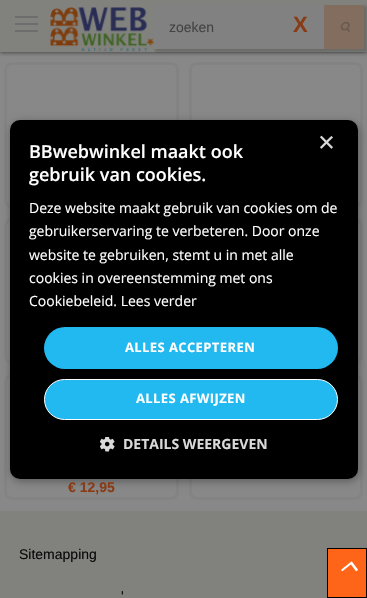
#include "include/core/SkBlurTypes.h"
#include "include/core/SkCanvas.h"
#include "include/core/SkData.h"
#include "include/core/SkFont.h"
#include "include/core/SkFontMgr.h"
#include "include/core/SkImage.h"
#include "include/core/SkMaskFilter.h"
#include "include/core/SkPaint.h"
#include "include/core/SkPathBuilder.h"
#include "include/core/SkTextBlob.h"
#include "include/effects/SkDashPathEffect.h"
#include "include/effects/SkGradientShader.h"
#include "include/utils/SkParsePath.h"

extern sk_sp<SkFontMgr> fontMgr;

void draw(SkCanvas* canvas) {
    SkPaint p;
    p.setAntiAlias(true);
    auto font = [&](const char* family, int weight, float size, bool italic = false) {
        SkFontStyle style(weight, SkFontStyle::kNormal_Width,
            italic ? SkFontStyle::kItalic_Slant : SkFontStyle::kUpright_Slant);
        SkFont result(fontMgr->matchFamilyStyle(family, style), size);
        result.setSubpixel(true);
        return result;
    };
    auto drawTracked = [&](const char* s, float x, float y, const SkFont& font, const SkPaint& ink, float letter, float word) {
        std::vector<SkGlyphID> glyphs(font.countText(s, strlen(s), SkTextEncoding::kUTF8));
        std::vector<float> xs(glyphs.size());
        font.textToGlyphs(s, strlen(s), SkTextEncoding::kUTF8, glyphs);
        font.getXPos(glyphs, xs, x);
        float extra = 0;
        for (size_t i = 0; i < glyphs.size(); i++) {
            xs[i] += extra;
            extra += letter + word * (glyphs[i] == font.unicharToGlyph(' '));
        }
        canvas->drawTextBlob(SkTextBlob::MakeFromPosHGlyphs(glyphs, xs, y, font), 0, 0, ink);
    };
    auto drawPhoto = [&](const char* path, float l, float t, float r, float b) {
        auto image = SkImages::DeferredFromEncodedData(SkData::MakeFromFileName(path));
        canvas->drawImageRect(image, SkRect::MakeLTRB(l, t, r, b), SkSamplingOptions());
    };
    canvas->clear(0xFF888888);
    p.setColor(0x80090909);
    p.setMaskFilter(SkMaskFilter::MakeBlur(kNormal_SkBlurStyle, 2));
    canvas->drawRect(SkRect::MakeLTRB(0, 1, 367, 53), p);
    p.setMaskFilter(nullptr);
    p.setColor(0xFF81817D);
    canvas->drawRect(SkRect::MakeLTRB(0, 0, 367, 52), p);
    drawPhoto("media/1.png", 50, 7, 154, 52);
    {
        const struct { float l, t, r, b; SkColor color; } items[] = {
            {15, 23, 38, 25, 0xFF6D6D6D},
            {15, 16, 38, 18, 0xFF6D6D6D},
            {15, 30, 38, 32, 0xFF6D6D6D},
        };
        for (auto [l, t, r, b, color] : items) {
            p.setColor(color);
            canvas->drawRect(SkRect::MakeLTRB(l, t, r, b), p);
        }
    }
    p.setColor(0x33141414);
    p.setMaskFilter(SkMaskFilter::MakeBlur(kNormal_SkBlurStyle, 1));
    canvas->drawRect(SkRect::MakeLTRB(155, 6, 367, 52), p);
    p.setMaskFilter(nullptr);
    p.setColor(0xFF818181);
    canvas->drawRect(SkRect::MakeLTRB(154, 5, 324, 49), p);
    auto font1 = font("Liberation Sans", 400, 14);
    p.setColor(0xFF434343);
    canvas->drawString("zoeken", 169, 32, font1, p);
    auto font2 = font("Liberation Sans", 700, 22);
    p.setColor(0xFF883B15);
    canvas->drawString("X", 293, 32, font2, p);
    p.setColor(0xFF836D5F);
    canvas->drawRect(SkRect::MakeLTRB(324, 5, 364, 49), p);
    drawPhoto("media/2.png", 340, 21, 350, 32);
    p.setStyle(SkPaint::kStroke_Style);
    p.setStrokeWidth(3);
    p.setColor(0xFF838383);
    canvas->drawRoundRect(SkRect::MakeLTRB(5.5f, 63.5f, 177.5f, 206.5f), 6.5f, 6.5f, p);
    canvas->drawRoundRect(SkRect::MakeLTRB(190.5f, 63.5f, 361.5f, 206.5f), 6.5f, 6.5f, p);
    canvas->drawRoundRect(SkRect::MakeLTRB(5.5f, 219.5f, 177.5f, 362.5f), 6.5f, 6.5f, p);
    canvas->drawRoundRect(SkRect::MakeLTRB(190.5f, 219.5f, 361.5f, 362.5f), 6.5f, 6.5f, p);
    canvas->drawRoundRect(SkRect::MakeLTRB(5.5f, 375.5f, 177.5f, 498.5f), 6.5f, 6.5f, p);
    canvas->drawRoundRect(SkRect::MakeLTRB(190.5f, 375.5f, 361.5f, 498.5f), 6.5f, 6.5f, p);
    p.setStyle(SkPaint::kFill_Style);
    p.setColor(0x59000000);
    p.setMaskFilter(SkMaskFilter::MakeBlur(kNormal_SkBlurStyle, 4));
    canvas->drawRoundRect(SkRect::MakeLTRB(11, 122, 359, 481), 10, 10, p);
    p.setMaskFilter(nullptr);
    p.setColor(0xFF000000);
    canvas->drawRoundRect(SkRect::MakeLTRB(10, 120, 358, 479), 10, 10, p);
    auto font3 = font("Liberation Sans", 400, 29);
    p.setColor(0xFFD9D9D9);
    canvas->drawString("×", 318, 152, font3, p);
    auto font4 = font("Open Sans", 600, 18);
    p.setColor(0xFFFFFFFF);
    canvas->drawString("BBwebwinkel maakt ook", 29, 158, font4, p);
    canvas->drawString("gebruik van cookies.", 29, 181, font4, p);
    auto font5 = font("Open Sans", 400, 14);
    {
        const struct { const char* s; float x, y; } items[] = {
            {"Deze website maakt gebruik van cookies om de", 29, 213},
            {"gebruikerservaring te verbeteren. Door onze", 29, 236},
            {"website te gebruiken, stemt u in met alle", 29, 260},
            {"cookies in overeenstemming met ons", 29, 283},
            {"Cookiebeleid. Lees verder", 29, 306},
        };
        for (auto [s, x, y] : items) {
            canvas->drawString(s, x, y, font5, p);
        }
    }
    p.setColor(0xFF22B8F0);
    canvas->drawRoundRect(SkRect::MakeLTRB(44, 327, 338, 369), 21, 21, p);
    auto font6 = font("Open Sans", 700, 13);
    p.setColor(0xFFFFFFFF);
    drawTracked("ALLES ACCEPTEREN", 125, 352, font6, p, 0.4f, 0);
    p.setColor(0xFF22B8F0);
    canvas->drawRoundRect(SkRect::MakeLTRB(44.5f, 379.5f, 337.5f, 419.5f), 20, 20, p);
    p.setStyle(SkPaint::kStroke_Style);
    p.setStrokeWidth(1);
    p.setColor(0xFFFFFFFF);
    canvas->drawRoundRect(SkRect::MakeLTRB(44.5f, 379.5f, 337.5f, 419.5f), 20, 20, p);
    p.setStyle(SkPaint::kFill_Style);
    drawTracked("ALLES AFWIJZEN", 136, 403, font6, p, 0.4f, 0);
    drawPhoto("media/3.png", 100, 437, 115, 452);
    auto font7 = font("Open Sans", 700, 14);
    p.setColor(0xFFD9D9D9);
    canvas->drawString("DETAILS WEERGEVEN", 123, 449, font7, p);
    auto font8 = font("Liberation Sans", 700, 14);
    p.setColor(0xFF883B15);
    canvas->drawString("€ 12,95", 68, 492, font8, p);
    p.setColor(0xFF81817D);
    canvas->drawRect(SkRect::MakeLTRB(0, 511, 367, 598), p);
    p.setColor(0xFF090909);
    canvas->drawString("Sitemapping", 19, 559, font1, p);
    canvas->drawString("'", 121, 601, font1, p);
    p.setColor(0xFFFE6519);
    canvas->drawRect(SkRect::MakeLTRB(327.5f, 548.5f, 366.5f, 597.5f), p);
    p.setStyle(SkPaint::kStroke_Style);
    p.setColor(0xFF000000);
    canvas->drawRect(SkRect::MakeLTRB(327.5f, 548.5f, 366.5f, 597.5f), p);
    drawPhoto("media/4.png", 341, 561, 358, 572);
}
